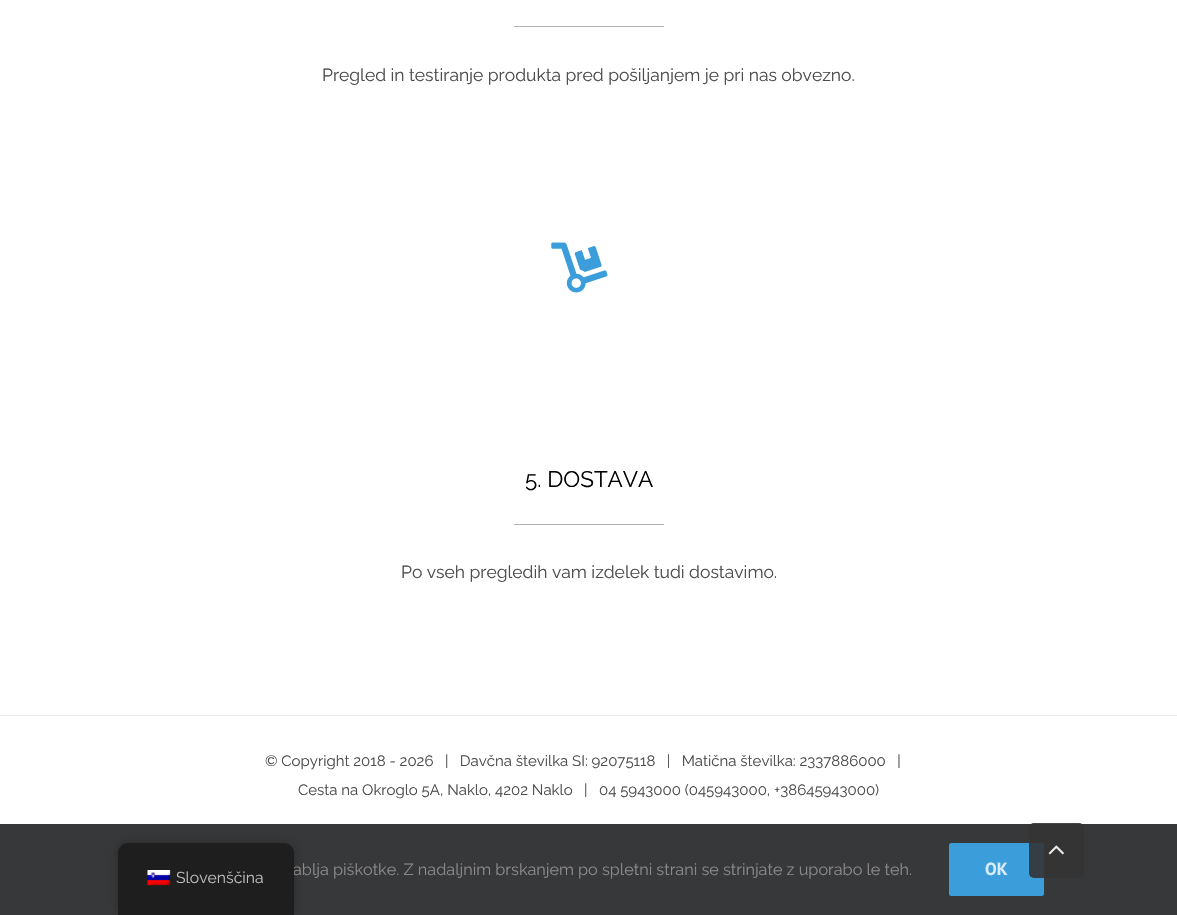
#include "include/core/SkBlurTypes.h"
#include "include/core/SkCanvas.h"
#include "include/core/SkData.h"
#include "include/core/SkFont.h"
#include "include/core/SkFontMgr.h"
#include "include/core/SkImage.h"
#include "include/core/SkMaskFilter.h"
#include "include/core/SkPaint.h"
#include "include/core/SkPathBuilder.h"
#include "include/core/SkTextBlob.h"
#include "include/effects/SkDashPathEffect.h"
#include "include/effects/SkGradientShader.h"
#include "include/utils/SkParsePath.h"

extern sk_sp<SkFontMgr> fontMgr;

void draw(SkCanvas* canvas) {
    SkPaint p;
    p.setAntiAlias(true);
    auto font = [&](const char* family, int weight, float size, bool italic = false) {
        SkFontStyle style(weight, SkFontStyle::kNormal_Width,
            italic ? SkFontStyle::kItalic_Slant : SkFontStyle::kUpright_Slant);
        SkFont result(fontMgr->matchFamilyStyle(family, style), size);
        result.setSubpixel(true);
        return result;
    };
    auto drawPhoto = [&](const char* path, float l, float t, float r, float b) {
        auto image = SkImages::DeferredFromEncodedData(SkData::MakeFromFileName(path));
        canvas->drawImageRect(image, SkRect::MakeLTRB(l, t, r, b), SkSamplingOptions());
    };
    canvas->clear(0xFFFFFFFF);
    p.setColor(0xFFB3B3B3);
    canvas->drawRect(SkRect::MakeLTRB(514, 26, 664, 27), p);
    auto font1 = font("Raleway", 400, 17.5f);
    p.setColor(0xFF4C4C4C);
    canvas->drawString("Pregled in testiranje produkta pred pošiljanjem je pri nas obvezno.", 322, 81, font1, p);
    drawPhoto("media/1.png", 551, 242, 608, 293);
    auto font2 = font("Raleway", 400, 22.5f);
    p.setColor(0xFF000000);
    canvas->drawString("5. DOSTAVA", 525, 487, font2, p);
    p.setColor(0xFFB3B3B3);
    canvas->drawRect(SkRect::MakeLTRB(514, 524, 664, 525), p);
    p.setColor(0xFF4C4C4C);
    canvas->drawString("Po vseh pregledih vam izdelek tudi dostavimo.", 401, 578, font1, p);
    p.setColor(0xFFEAEAEA);
    canvas->drawRect(SkRect::MakeLTRB(0, 715, 1177, 716), p);
    auto font3 = font("Raleway", 400, 15);
    p.setColor(0xFF4C4C4C);
    canvas->drawString("© Copyright 2018 - 2026   |   Davčna številka SI: 92075118   |   Matična številka: 2337886000   |", 265, 766, font3, p);
    canvas->drawString("Cesta na Okroglo 5A, Naklo, 4202 Naklo   |   04 5943000 (045943000, +38645943000)", 298, 795, font3, p);
    p.setColor(0xFF363839);
    canvas->drawRect(SkRect::MakeLTRB(0, 824, 1177, 915), p);
    p.setColor(0x40000000);
    p.setMaskFilter(SkMaskFilter::MakeBlur(kNormal_SkBlurStyle, 5));
    canvas->drawRoundRect(SkRect::MakeLTRB(118, 843, 294, 915), 10, 10, p);
    p.setMaskFilter(nullptr);
    auto font4 = font("Raleway", 400, 16.25f);
    p.setColor(0xFF8C8989);
    canvas->drawString("ablja piškotke. Z nadaljnim brskanjem po spletni strani se strinjate z uporabo le teh.", 293, 875, font4, p);
    p.setColor(0xFF1E1E1E);
    canvas->drawPath(SkPathBuilder().moveTo(128, 843).lineTo(284, 843).cubicTo(289.5f, 843, 294, 847.5f, 294, 853).lineTo(294, 915).lineTo(118, 915).lineTo(118, 853).cubicTo(118, 847.5f, 122.5f, 843, 128, 843).close().detach(), p);
    drawPhoto("media/2.png", 147, 870, 171, 886);
    auto font5 = font("Raleway", 400, 15.75f);
    p.setColor(0xFFBDBDBD);
    canvas->drawString("Slovenščina", 176, 883, font5, p);
    p.setColor(0xFF3B9EDA);
    canvas->drawRoundRect(SkRect::MakeLTRB(949, 843, 1044, 896), 2.5f, 2.5f, p);
    auto font6 = font("PT Sans", 700, 17.5f);
    p.setColor(0xFFD8ECF8);
    canvas->drawString("OK", 985, 875, font6, p);
    p.setColor(0xE6333333);
    canvas->drawRoundRect(SkRect::MakeLTRB(1029, 823, 1084, 878), 5, 5, p);
    drawPhoto("media/3.png", 1048, 845, 1064, 855);
}
